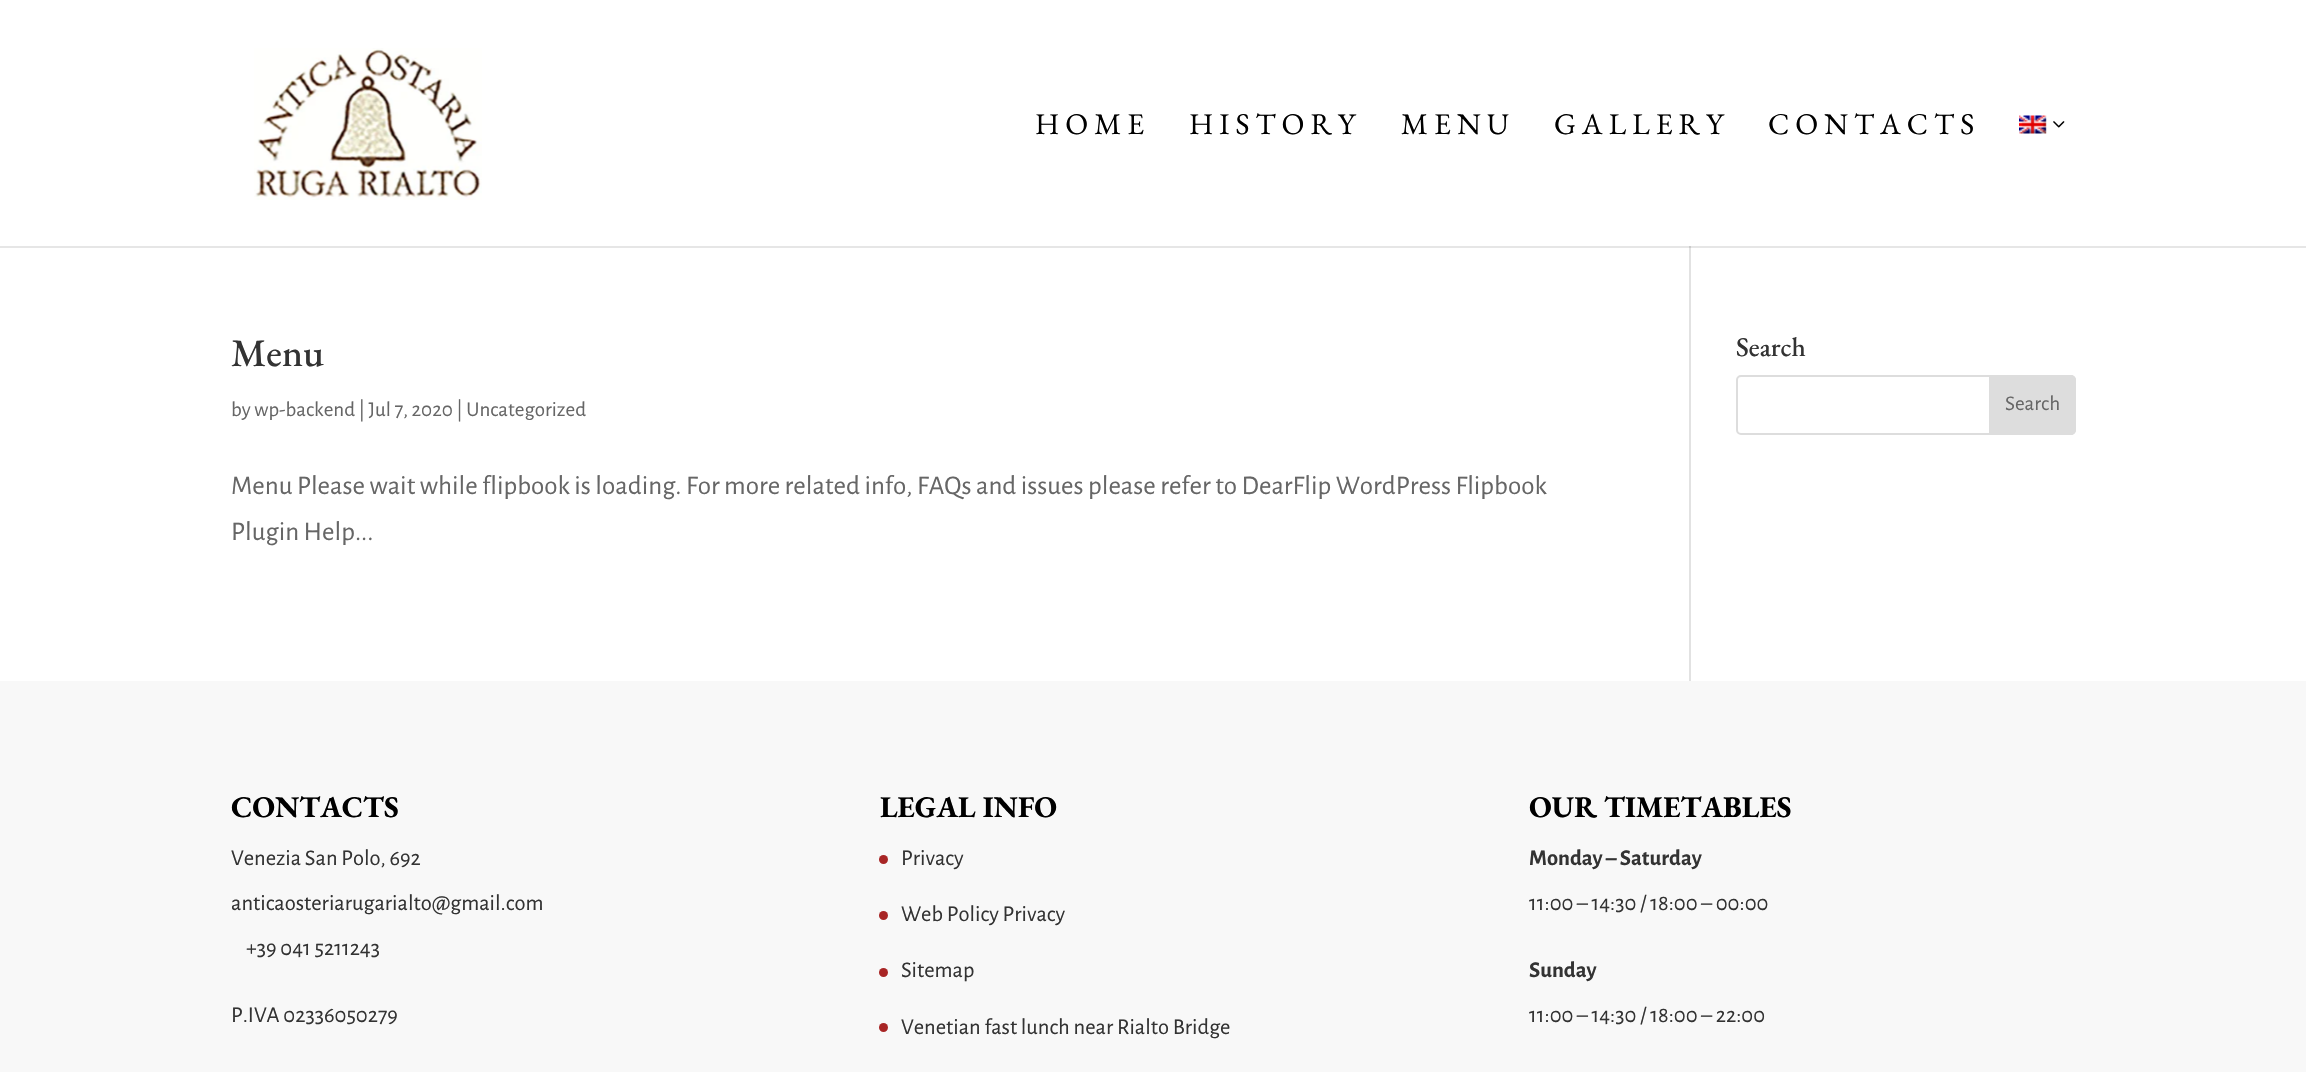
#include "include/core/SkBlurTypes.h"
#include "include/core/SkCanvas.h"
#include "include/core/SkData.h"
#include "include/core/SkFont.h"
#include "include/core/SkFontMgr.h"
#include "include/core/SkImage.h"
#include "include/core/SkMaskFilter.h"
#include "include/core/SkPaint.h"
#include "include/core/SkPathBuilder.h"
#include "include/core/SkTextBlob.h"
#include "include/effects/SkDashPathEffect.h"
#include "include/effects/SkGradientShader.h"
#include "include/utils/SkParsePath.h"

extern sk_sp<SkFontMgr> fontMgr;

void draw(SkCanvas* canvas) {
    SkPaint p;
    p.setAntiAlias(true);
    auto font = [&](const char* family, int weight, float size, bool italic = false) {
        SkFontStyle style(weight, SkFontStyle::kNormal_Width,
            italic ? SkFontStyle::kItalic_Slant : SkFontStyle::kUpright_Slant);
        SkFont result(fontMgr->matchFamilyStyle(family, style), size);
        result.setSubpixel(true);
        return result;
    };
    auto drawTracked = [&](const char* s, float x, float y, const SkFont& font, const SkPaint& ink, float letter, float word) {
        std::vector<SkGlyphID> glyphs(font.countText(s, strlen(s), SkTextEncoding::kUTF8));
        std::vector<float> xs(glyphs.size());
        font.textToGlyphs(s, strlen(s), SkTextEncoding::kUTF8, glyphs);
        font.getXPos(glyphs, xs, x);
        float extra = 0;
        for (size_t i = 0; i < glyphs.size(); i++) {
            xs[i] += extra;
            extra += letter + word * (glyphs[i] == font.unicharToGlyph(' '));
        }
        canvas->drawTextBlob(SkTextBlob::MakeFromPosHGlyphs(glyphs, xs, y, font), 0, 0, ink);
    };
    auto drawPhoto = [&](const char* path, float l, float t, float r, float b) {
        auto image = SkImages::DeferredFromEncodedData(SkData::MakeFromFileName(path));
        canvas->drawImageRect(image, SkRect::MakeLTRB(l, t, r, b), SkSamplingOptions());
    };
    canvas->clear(0xFFFFFFFF);
    p.setColor(0xFFE6E6E6);
    canvas->drawRect(SkRect::MakeLTRB(0, 246, 2306, 248), p);
    drawPhoto("media/1.png", 254, 48, 482, 200);
    auto font1 = font("EB Garamond", 400, 30);
    p.setColor(0xFF000000);
    {
        const struct { const char* s; float x, y; } items[] = {
            {"HOME", 1035, 134},
            {"HISTORY", 1189, 134},
            {"MENU", 1401, 134},
            {"GALLERY", 1554, 134},
            {"CONTACTS", 1768, 134},
        };
        for (auto [s, x, y] : items) {
            drawTracked(s, x, y, font1, p, 6, 0);
        }
    }
    drawPhoto("media/2.png", 2019, 115, 2047, 134);
    drawPhoto("media/3.png", 2053, 121, 2065, 128);
    p.setColor(0xFFE2E2E2);
    canvas->drawRect(SkRect::MakeLTRB(1689, 246, 1691, 681), p);
    p.setColor(0xFFCBCBCB);
    canvas->drawRect(SkRect::MakeLTRB(1689, 246, 1691, 248), p);
    auto font2 = font("EB Garamond", 500, 39);
    p.setColor(0xFF333333);
    canvas->drawString("Menu", 231, 366, font2, p);
    auto font3 = font("Alegreya Sans", 400, 21);
    p.setColor(0xFF666666);
    canvas->drawString("by wp-backend | Jul 7, 2020 | Uncategorized", 231, 416, font3, p);
    auto font4 = font("Alegreya Sans", 400, 27);
    canvas->drawString("Menu Please wait while flipbook is loading. For more related info, FAQs and issues please refer to DearFlip WordPress Flipbook", 231, 494, font4, p);
    canvas->drawString("Plugin Help...", 231, 540, font4, p);
    auto font5 = font("EB Garamond", 500, 27);
    p.setColor(0xFF333333);
    canvas->drawString("Search", 1736, 356, font5, p);
    p.setStyle(SkPaint::kStroke_Style);
    p.setStrokeWidth(2);
    p.setColor(0xFFDDDDDD);
    canvas->drawRoundRect(SkRect::MakeLTRB(1737, 376, 2075, 434), 4, 4, p);
    p.setStyle(SkPaint::kFill_Style);
    canvas->drawPath(SkPathBuilder().moveTo(1990, 376).lineTo(2071, 376).cubicTo(2073, 376, 2075, 378, 2075, 380).lineTo(2075, 430).cubicTo(2075, 432, 2073, 434, 2071, 434).lineTo(1990, 434).close().detach(), p);
    p.setStyle(SkPaint::kStroke_Style);
    canvas->drawPath(SkPathBuilder().moveTo(1990, 376).lineTo(2071, 376).cubicTo(2073, 376, 2075, 378, 2075, 380).lineTo(2075, 430).cubicTo(2075, 432, 2073, 434, 2071, 434).lineTo(1990, 434).close().detach(), p);
    p.setStyle(SkPaint::kFill_Style);
    p.setColor(0xFF666666);
    canvas->drawString("Search", 2005, 410, font3, p);
    p.setColor(0xFFF8F8F8);
    canvas->drawRect(SkRect::MakeLTRB(0, 681, 2306, 1072), p);
    auto font6 = font("EB Garamond", 700, 30);
    p.setColor(0xFF000000);
    canvas->drawString("CONTACTS", 231, 817, font6, p);
    auto font7 = font("Alegreya Sans", 400, 22.5f);
    p.setColor(0xFF333333);
    {
        const struct { const char* s; float x, y; } items[] = {
            {"Venezia San Polo, 692", 231, 865},
            {"anticaosteriarugarialto@gmail.com", 231, 910},
            {"+39 041 5211243", 246, 955},
            {"P.IVA 02336050279", 231, 1022},
        };
        for (auto [s, x, y] : items) {
            canvas->drawString(s, x, y, font7, p);
        }
    }
    p.setColor(0xFF000000);
    canvas->drawString("LEGAL INFO", 880, 817, font6, p);
    p.setColor(0xFFA82525);
    canvas->drawCircle(883.5f, 859.5f, 4.5f, p);
    p.setColor(0xFF333333);
    canvas->drawString("Privacy", 901, 865, font7, p);
    p.setColor(0xFFA82525);
    canvas->drawCircle(883.5f, 915.5f, 4.5f, p);
    p.setColor(0xFF333333);
    canvas->drawString("Web Policy Privacy", 901, 921, font7, p);
    p.setColor(0xFFA82525);
    canvas->drawCircle(883.5f, 972.5f, 4.5f, p);
    p.setColor(0xFF333333);
    canvas->drawString("Sitemap", 901, 977, font7, p);
    p.setColor(0xFFA82525);
    canvas->drawCircle(883.5f, 1027.5f, 4.5f, p);
    p.setColor(0xFF333333);
    canvas->drawString("Venetian fast lunch near Rialto Bridge", 901, 1034, font7, p);
    p.setColor(0xFF000000);
    canvas->drawString("OUR TIMETABLES", 1529, 817, font6, p);
    auto font8 = font("Alegreya Sans", 700, 22.5f);
    p.setColor(0xFF333333);
    canvas->drawString("Monday – Saturday", 1529, 865, font8, p);
    canvas->drawString("11:00 – 14:30 / 18:00 – 00:00", 1529, 910, font7, p);
    canvas->drawString("Sunday", 1529, 977, font8, p);
    canvas->drawString("11:00 – 14:30 / 18:00 – 22:00", 1529, 1022, font7, p);
}
